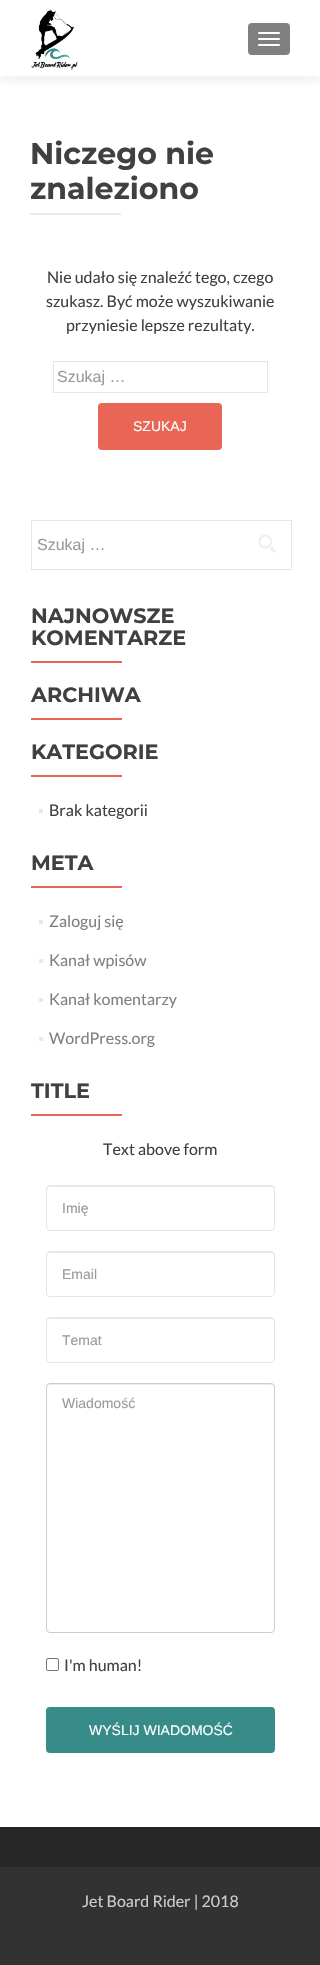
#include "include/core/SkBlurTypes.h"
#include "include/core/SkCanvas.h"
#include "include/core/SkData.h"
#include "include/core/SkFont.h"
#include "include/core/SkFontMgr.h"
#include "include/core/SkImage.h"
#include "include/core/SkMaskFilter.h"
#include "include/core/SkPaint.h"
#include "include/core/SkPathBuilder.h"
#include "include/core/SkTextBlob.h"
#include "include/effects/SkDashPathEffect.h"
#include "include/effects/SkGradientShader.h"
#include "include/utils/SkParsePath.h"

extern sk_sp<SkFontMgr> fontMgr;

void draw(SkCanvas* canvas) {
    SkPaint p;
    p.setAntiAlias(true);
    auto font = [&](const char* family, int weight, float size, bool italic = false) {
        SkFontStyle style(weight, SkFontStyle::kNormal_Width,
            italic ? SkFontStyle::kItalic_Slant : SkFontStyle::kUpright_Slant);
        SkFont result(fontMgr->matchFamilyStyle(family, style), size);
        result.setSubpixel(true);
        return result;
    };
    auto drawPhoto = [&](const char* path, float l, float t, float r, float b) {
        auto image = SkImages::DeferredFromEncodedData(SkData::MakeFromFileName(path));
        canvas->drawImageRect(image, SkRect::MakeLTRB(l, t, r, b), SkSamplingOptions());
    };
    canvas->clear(0xFFFFFFFF);
    canvas->save();
    canvas->clipRect(SkRect::MakeLTRB(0, 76, 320, 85));
    p.setColor(0x14323232);
    p.setMaskFilter(SkMaskFilter::MakeBlur(kNormal_SkBlurStyle, 5.5f));
    canvas->drawRect(SkRect::MakeLTRB(0, 5, 320, 81), p);
    p.setMaskFilter(nullptr);
    canvas->restore();
    drawPhoto("media/1.png", 31, 9, 78, 70);
    p.setColor(0xFF808080);
    canvas->drawRoundRect(SkRect::MakeLTRB(248, 23, 290, 55), 4, 4, p);
    p.setColor(0xFFFFFFFF);
    canvas->drawRoundRect(SkRect::MakeLTRB(258, 32, 280, 34), 1, 1, p);
    canvas->drawRoundRect(SkRect::MakeLTRB(258, 38, 280, 40), 1, 1, p);
    canvas->drawRoundRect(SkRect::MakeLTRB(258, 44, 280, 46), 1, 1, p);
    auto font1 = font("Montserrat", 700, 30);
    p.setColor(0xFF404040);
    canvas->drawString("Niczego nie", 30, 164, font1, p);
    canvas->drawString("znaleziono", 30, 199, font1, p);
    p.setColor(0xFFE9E9E9);
    canvas->drawRect(SkRect::MakeLTRB(30, 213, 121, 215), p);
    auto font2 = font("Lato", 400, 16);
    p.setColor(0xFF404040);
    {
        const struct { const char* s; float x, y; } items[] = {
            {"Nie udało się znaleźć tego, czego", 47, 283},
            {"szukasz. Być może wyszukiwanie", 46, 307},
            {"przyniesie lepsze rezultaty.", 66, 331},
        };
        for (auto [s, x, y] : items) {
            canvas->drawString(s, x, y, font2, p);
        }
    }
    p.setStyle(SkPaint::kStroke_Style);
    p.setStrokeWidth(1);
    p.setColor(0xFFE6E6E6);
    canvas->drawRect(SkRect::MakeLTRB(53.5f, 361.5f, 267.5f, 392.5f), p);
    auto font3 = font("Liberation Sans", 400, 16);
    p.setStyle(SkPaint::kFill_Style);
    p.setColor(0xFF999999);
    canvas->drawString("Szukaj …", 57, 382, font3, p);
    p.setColor(0xFFE96656);
    canvas->drawRoundRect(SkRect::MakeLTRB(98, 403, 222, 450), 4, 4, p);
    auto font4 = font("Liberation Sans", 400, 14);
    p.setColor(0xFFFFFFFF);
    canvas->drawString("SZUKAJ", 133, 431, font4, p);
    p.setColor(0xFFF2F2F2);
    canvas->drawRect(SkRect::MakeLTRB(15, 520, 16, 521), p);
    p.setStyle(SkPaint::kStroke_Style);
    p.setColor(0xFFE6E6E6);
    canvas->drawRect(SkRect::MakeLTRB(31.5f, 520.5f, 291.5f, 569.5f), p);
    p.setStyle(SkPaint::kFill_Style);
    p.setColor(0xFF999999);
    canvas->drawString("Szukaj …", 37, 550, font3, p);
    drawPhoto("media/2.png", 258, 534, 276, 553);
    auto font5 = font("Montserrat", 700, 20.75f);
    p.setColor(0xFF404040);
    canvas->drawString("NAJNOWSZE", 31, 623, font5, p);
    canvas->drawString("KOMENTARZE", 31, 645, font5, p);
    p.setColor(0xFFE96656);
    canvas->drawRect(SkRect::MakeLTRB(31, 661, 122, 663), p);
    p.setColor(0xFF404040);
    canvas->drawString("ARCHIWA", 31, 702, font5, p);
    p.setColor(0xFFE96656);
    canvas->drawRect(SkRect::MakeLTRB(31, 718, 122, 720), p);
    p.setColor(0xFF404040);
    canvas->drawString("KATEGORIE", 31, 759, font5, p);
    p.setColor(0xFFE96656);
    canvas->drawRect(SkRect::MakeLTRB(31, 775, 122, 777), p);
    p.setColor(0xFFE9E9E9);
    canvas->drawRect(SkRect::MakeLTRB(39, 809, 43, 813), p);
    p.setColor(0xFF404040);
    canvas->drawString("Brak kategorii", 49, 816, font2, p);
    canvas->drawString("META", 31, 870, font5, p);
    p.setColor(0xFFE96656);
    canvas->drawRect(SkRect::MakeLTRB(31, 886, 122, 888), p);
    p.setColor(0xFFE9E9E9);
    canvas->drawRect(SkRect::MakeLTRB(39, 920, 43, 924), p);
    p.setColor(0xFF808080);
    canvas->drawString("Zaloguj się", 49, 927, font2, p);
    p.setColor(0xFFE9E9E9);
    canvas->drawRect(SkRect::MakeLTRB(39, 959, 43, 963), p);
    p.setColor(0xFF808080);
    canvas->drawString("Kanał wpisów", 49, 966, font2, p);
    p.setColor(0xFFE9E9E9);
    canvas->drawRect(SkRect::MakeLTRB(39, 998, 43, 1002), p);
    p.setColor(0xFF808080);
    canvas->drawString("Kanał komentarzy", 49, 1005, font2, p);
    p.setColor(0xFFE9E9E9);
    canvas->drawRect(SkRect::MakeLTRB(39, 1037, 43, 1041), p);
    p.setColor(0xFF808080);
    canvas->drawString("WordPress.org", 49, 1044, font2, p);
    p.setColor(0xFF404040);
    canvas->drawString("TITLE", 31, 1098, font5, p);
    p.setColor(0xFFE96656);
    canvas->drawRect(SkRect::MakeLTRB(31, 1114, 122, 1116), p);
    p.setColor(0xFF404040);
    canvas->drawString("Text above form", 103, 1155, font2, p);
    p.setColor(0xFFECECEC);
    canvas->drawPath(SkPathBuilder().moveTo(50, 1187).lineTo(271, 1187).cubicTo(273, 1187, 274, 1188, 274, 1190).lineTo(274, 1189).cubicTo(274, 1187, 273, 1186, 271, 1186).lineTo(50, 1186).cubicTo(48, 1186, 47, 1187, 47, 1189).lineTo(47, 1190).cubicTo(47, 1188, 48, 1187, 50, 1187).close().detach(), p);
    p.setStyle(SkPaint::kStroke_Style);
    p.setColor(0xFFE5E5E5);
    canvas->drawRoundRect(SkRect::MakeLTRB(46.5f, 1185.5f, 274.5f, 1230.5f), 3.5f, 3.5f, p);
    p.setStyle(SkPaint::kFill_Style);
    p.setColor(0xFF999999);
    canvas->drawString("Imię", 62, 1213, font4, p);
    p.setColor(0xFFECECEC);
    canvas->drawPath(SkPathBuilder().moveTo(50, 1253).lineTo(271, 1253).cubicTo(273, 1253, 274, 1254, 274, 1256).lineTo(274, 1255).cubicTo(274, 1253, 273, 1252, 271, 1252).lineTo(50, 1252).cubicTo(48, 1252, 47, 1253, 47, 1255).lineTo(47, 1256).cubicTo(47, 1254, 48, 1253, 50, 1253).close().detach(), p);
    p.setStyle(SkPaint::kStroke_Style);
    p.setColor(0xFFE5E5E5);
    canvas->drawRoundRect(SkRect::MakeLTRB(46.5f, 1251.5f, 274.5f, 1296.5f), 3.5f, 3.5f, p);
    p.setStyle(SkPaint::kFill_Style);
    p.setColor(0xFF999999);
    canvas->drawString("Email", 62, 1279, font4, p);
    p.setColor(0xFFECECEC);
    canvas->drawPath(SkPathBuilder().moveTo(50, 1319).lineTo(271, 1319).cubicTo(273, 1319, 274, 1320, 274, 1322).lineTo(274, 1321).cubicTo(274, 1319, 273, 1318, 271, 1318).lineTo(50, 1318).cubicTo(48, 1318, 47, 1319, 47, 1321).lineTo(47, 1322).cubicTo(47, 1320, 48, 1319, 50, 1319).close().detach(), p);
    p.setStyle(SkPaint::kStroke_Style);
    p.setColor(0xFFE5E5E5);
    canvas->drawRoundRect(SkRect::MakeLTRB(46.5f, 1317.5f, 274.5f, 1362.5f), 3.5f, 3.5f, p);
    p.setStyle(SkPaint::kFill_Style);
    p.setColor(0xFF999999);
    canvas->drawString("Temat", 62, 1345, font4, p);
    p.setColor(0xFFECECEC);
    canvas->drawPath(SkPathBuilder().moveTo(50, 1385).lineTo(271, 1385).cubicTo(273, 1385, 274, 1386, 274, 1388).lineTo(274, 1387).cubicTo(274, 1385, 273, 1384, 271, 1384).lineTo(50, 1384).cubicTo(48, 1384, 47, 1385, 47, 1387).lineTo(47, 1388).cubicTo(47, 1386, 48, 1385, 50, 1385).close().detach(), p);
    p.setStyle(SkPaint::kStroke_Style);
    p.setColor(0xFFCCCCCC);
    canvas->drawRoundRect(SkRect::MakeLTRB(46.5f, 1383.5f, 274.5f, 1632.5f), 3.5f, 3.5f, p);
    p.setStyle(SkPaint::kFill_Style);
    p.setColor(0xFF999999);
    canvas->drawString("Wiadomość", 62, 1408, font4, p);
    p.setStyle(SkPaint::kStroke_Style);
    p.setColor(0xFF767676);
    canvas->drawRoundRect(SkRect::MakeLTRB(46.5f, 1658.5f, 58.5f, 1670.5f), 1.5f, 1.5f, p);
    p.setStyle(SkPaint::kFill_Style);
    p.setColor(0xFF404040);
    canvas->drawString("I'm human!", 64, 1671, font2, p);
    p.setColor(0xFF378C8A);
    canvas->drawRoundRect(SkRect::MakeLTRB(46, 1707, 275, 1753), 4, 4, p);
    p.setColor(0xFFFFFFFF);
    canvas->drawString("WYŚLIJ WIADOMOŚĆ", 89, 1735, font4, p);
    p.setColor(0xFF272727);
    canvas->drawRect(SkRect::MakeLTRB(0, 1827, 320, 1867), p);
    p.setColor(0xFF323232);
    canvas->drawRect(SkRect::MakeLTRB(0, 1867, 320, 1965), p);
    p.setColor(0xFFCCCCCC);
    canvas->drawString("Jet Board Rider | 2018", 82, 1907, font2, p);
}
